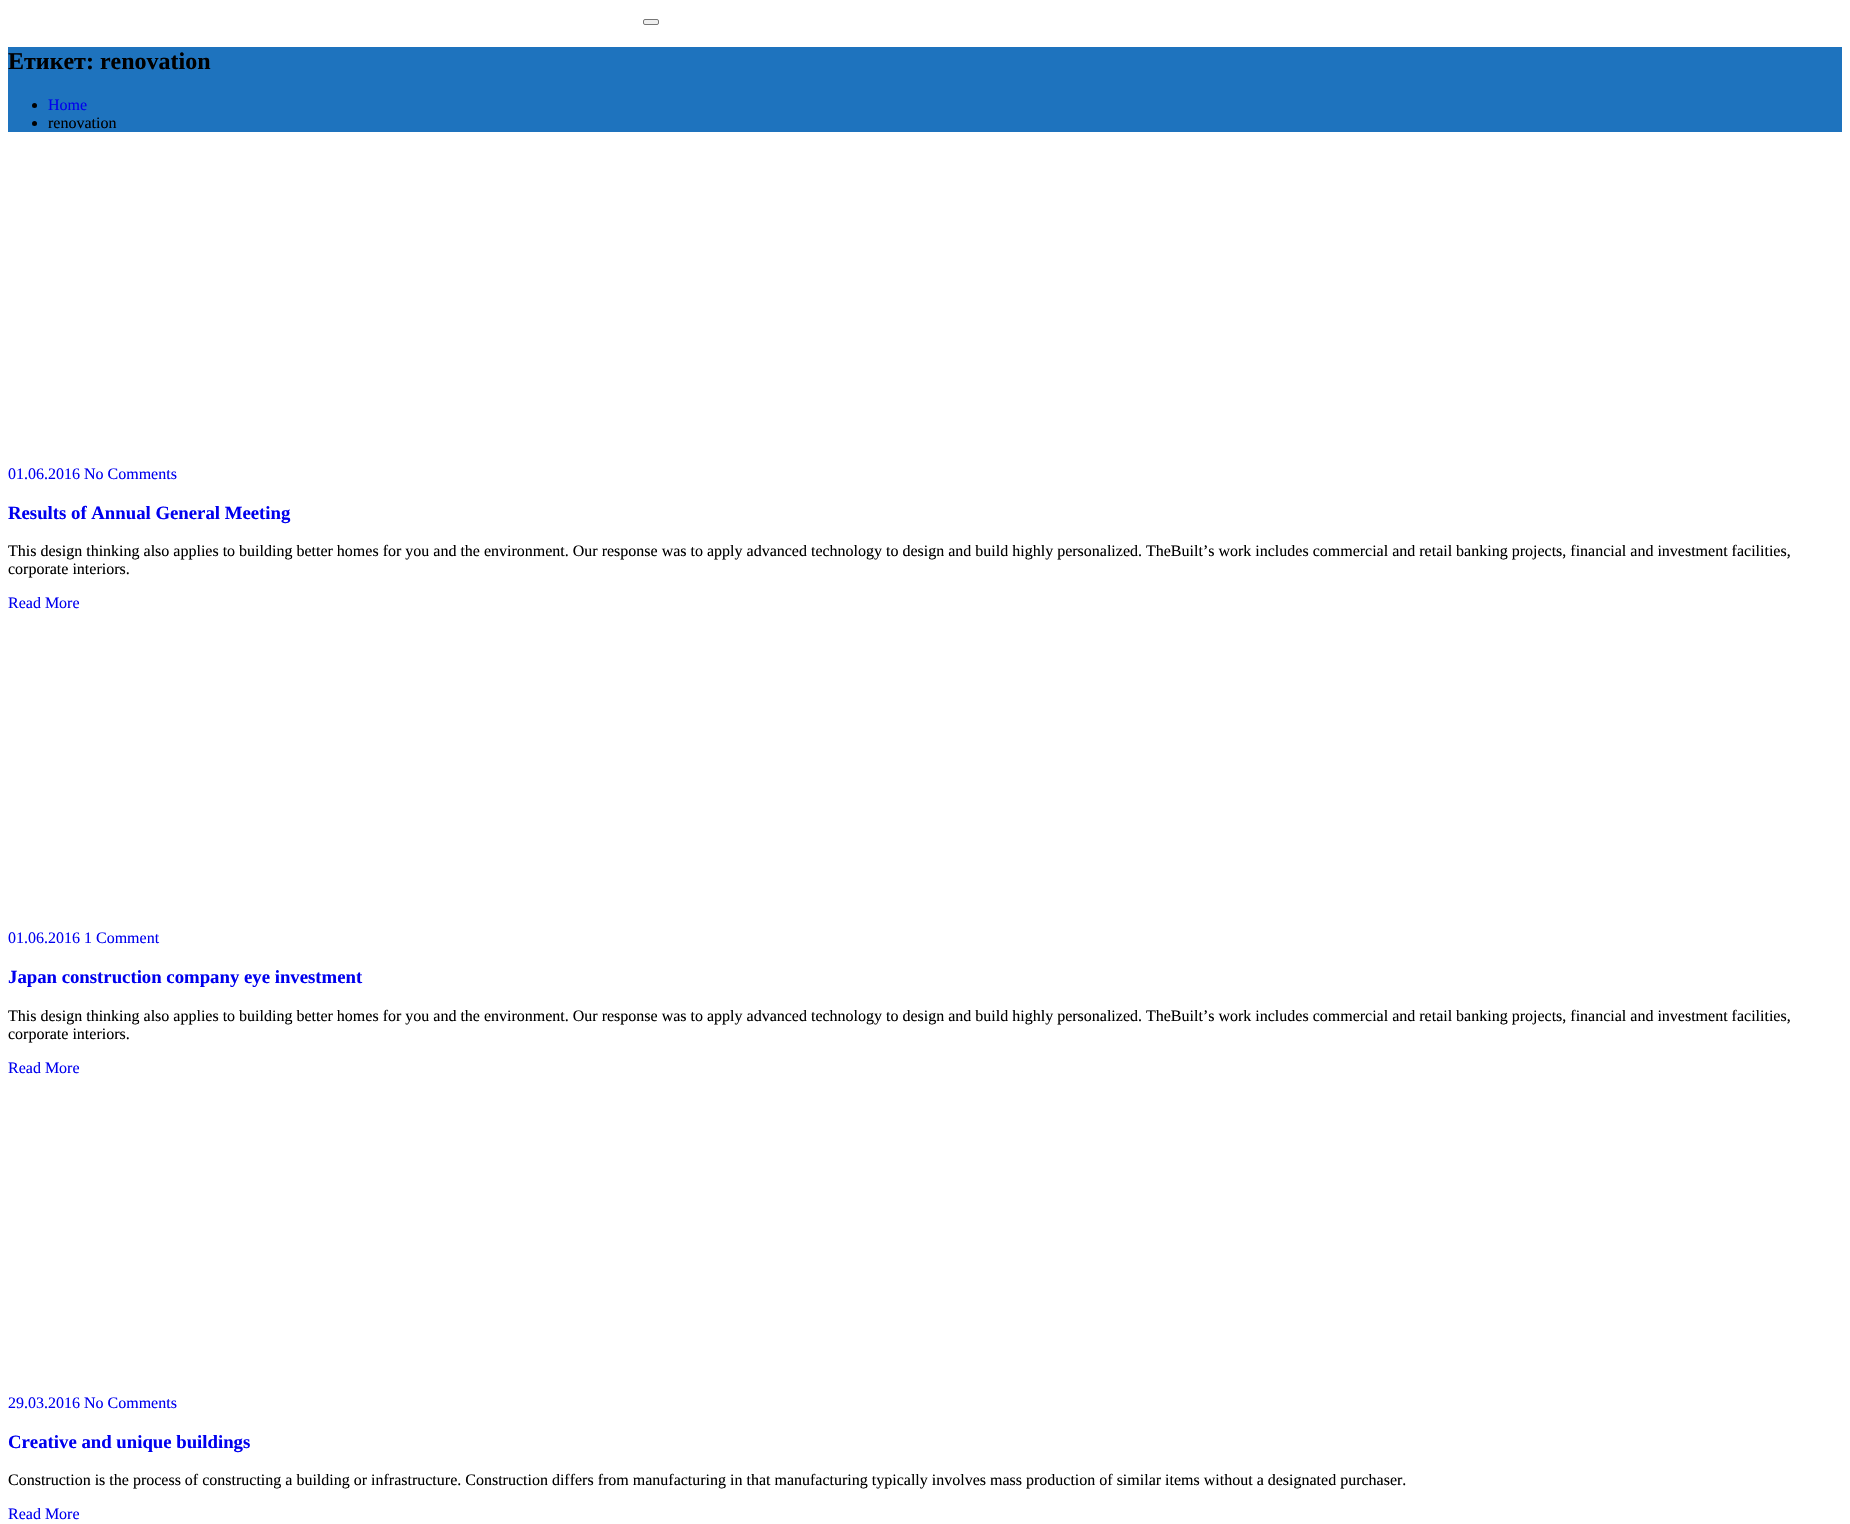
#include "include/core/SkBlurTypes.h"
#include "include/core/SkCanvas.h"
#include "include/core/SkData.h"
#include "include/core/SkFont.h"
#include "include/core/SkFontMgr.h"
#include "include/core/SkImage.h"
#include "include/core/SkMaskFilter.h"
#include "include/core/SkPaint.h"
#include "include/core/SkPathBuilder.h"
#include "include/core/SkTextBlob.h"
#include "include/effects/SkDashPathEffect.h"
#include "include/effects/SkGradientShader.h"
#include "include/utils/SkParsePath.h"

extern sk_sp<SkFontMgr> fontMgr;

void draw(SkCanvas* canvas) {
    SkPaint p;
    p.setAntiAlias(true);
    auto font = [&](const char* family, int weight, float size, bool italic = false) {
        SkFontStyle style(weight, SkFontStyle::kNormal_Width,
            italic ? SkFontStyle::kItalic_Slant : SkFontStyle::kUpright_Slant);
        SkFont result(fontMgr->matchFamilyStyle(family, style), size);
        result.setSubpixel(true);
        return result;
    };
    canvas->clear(0xFFFFFFFF);
    p.setColor(0xFFEFEFEF);
    canvas->drawRoundRect(SkRect::MakeLTRB(643.5f, 19.5f, 658.5f, 24.5f), 1.5f, 1.5f, p);
    p.setStyle(SkPaint::kStroke_Style);
    p.setStrokeWidth(1);
    p.setColor(0xFF767676);
    canvas->drawRoundRect(SkRect::MakeLTRB(643.5f, 19.5f, 658.5f, 24.5f), 1.5f, 1.5f, p);
    p.setStyle(SkPaint::kFill_Style);
    p.setColor(0xFF1E73BE);
    canvas->drawRect(SkRect::MakeLTRB(8, 47, 1842, 132), p);
    auto font1 = font("Liberation Serif", 700, 24);
    p.setColor(0xFF000000);
    canvas->drawString("Етикет: renovation", 8, 69, font1, p);
    canvas->drawCircle(34.5f, 105.5f, 2.5f, p);
    auto font2 = font("Liberation Serif", 400, 16);
    p.setColor(0xFF0000EE);
    canvas->drawString("Home", 48, 110, font2, p);
    p.setColor(0xFF000000);
    canvas->drawCircle(34.5f, 123.5f, 2.5f, p);
    canvas->drawString("renovation", 48, 128, font2, p);
    p.setColor(0xFF0000EE);
    canvas->drawString("01.06.2016 No Comments", 8, 479, font2, p);
    auto font3 = font("Liberation Serif", 700, 18.75f);
    canvas->drawString("Results of Annual General Meeting", 8, 519, font3, p);
    p.setColor(0xFF000000);
    canvas->drawString("This design thinking also applies to building better homes for you and the environment. Our response was to apply advanced technology to design and build highly personalized. TheBuilt’s work includes commercial and retail banking projects, financial and investment facilities,", 8, 556, font2, p);
    canvas->drawString("corporate interiors.", 8, 574, font2, p);
    p.setColor(0xFF0000EE);
    canvas->drawString("Read More", 8, 608, font2, p);
    canvas->drawString("01.06.2016 1 Comment", 8, 943, font2, p);
    canvas->drawString("Japan construction company eye investment", 8, 983, font3, p);
    p.setColor(0xFF000000);
    canvas->drawString("This design thinking also applies to building better homes for you and the environment. Our response was to apply advanced technology to design and build highly personalized. TheBuilt’s work includes commercial and retail banking projects, financial and investment facilities,", 8, 1021, font2, p);
    canvas->drawString("corporate interiors.", 8, 1039, font2, p);
    p.setColor(0xFF0000EE);
    canvas->drawString("Read More", 8, 1073, font2, p);
    canvas->drawString("29.03.2016 No Comments", 8, 1408, font2, p);
    canvas->drawString("Creative and unique buildings", 8, 1448, font3, p);
    p.setColor(0xFF000000);
    canvas->drawString("Construction is the process of constructing a building or infrastructure. Construction differs from manufacturing in that manufacturing typically involves mass production of similar items without a designated purchaser.", 8, 1485, font2, p);
    p.setColor(0xFF0000EE);
    canvas->drawString("Read More", 8, 1519, font2, p);
}
